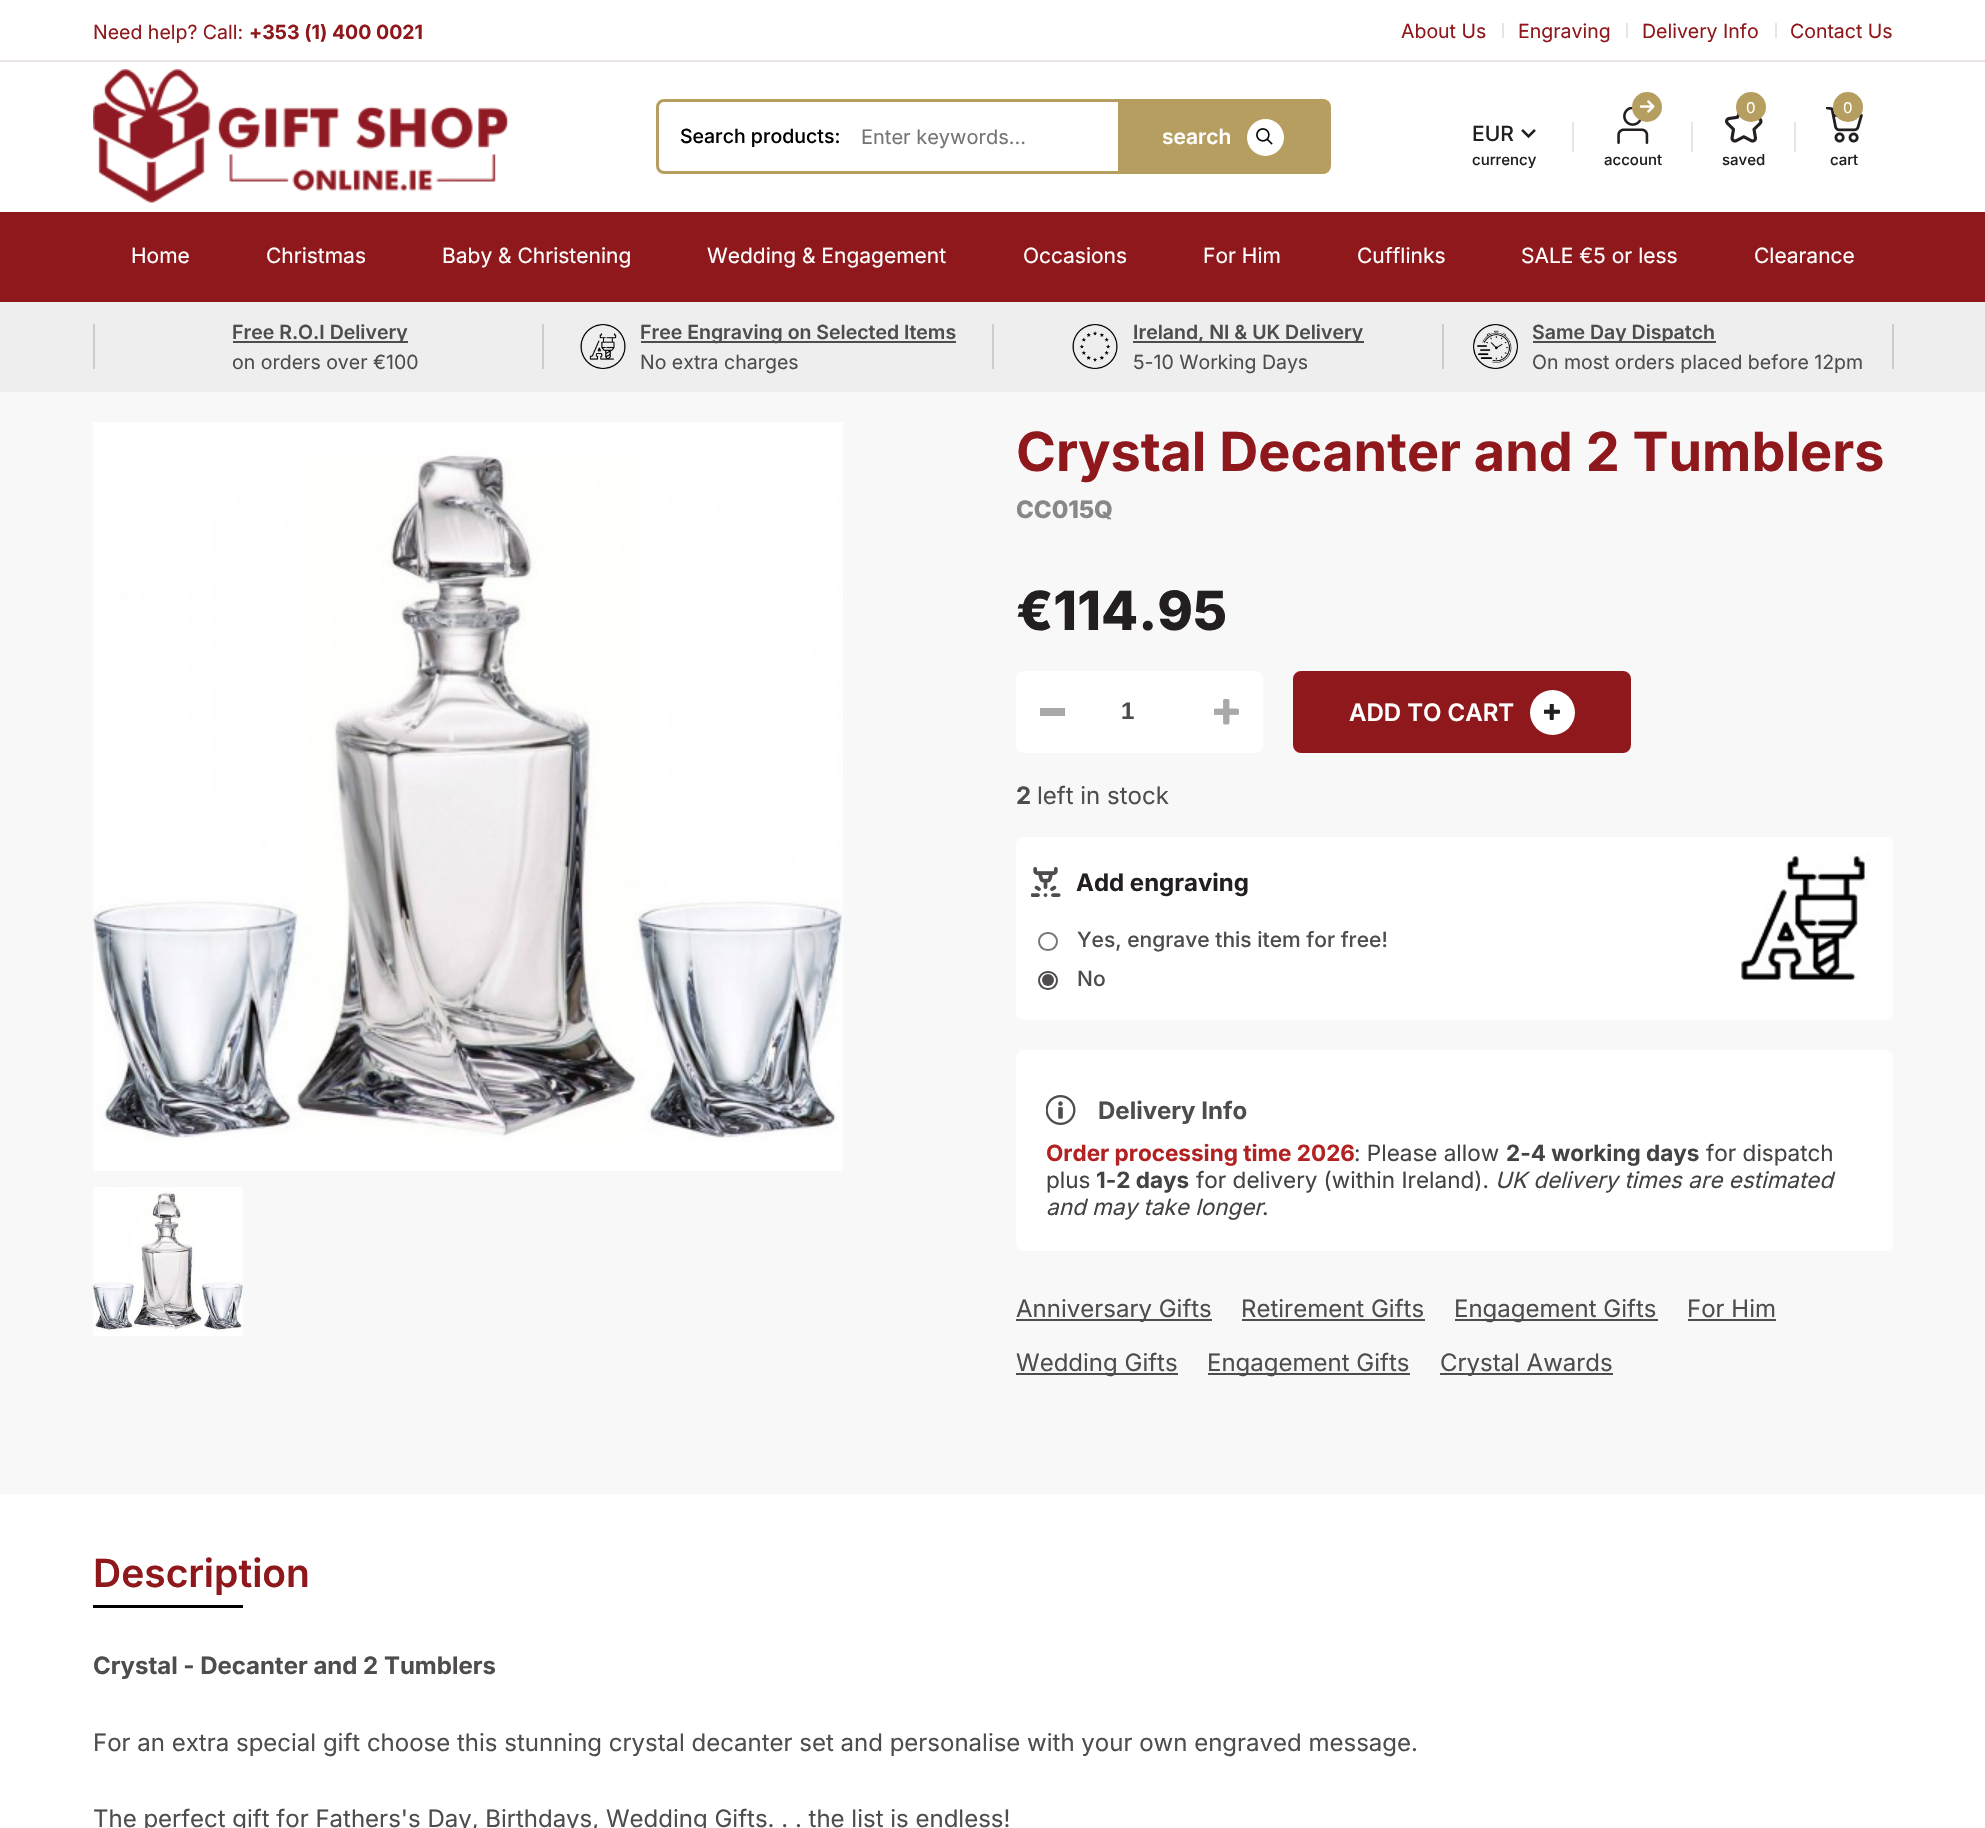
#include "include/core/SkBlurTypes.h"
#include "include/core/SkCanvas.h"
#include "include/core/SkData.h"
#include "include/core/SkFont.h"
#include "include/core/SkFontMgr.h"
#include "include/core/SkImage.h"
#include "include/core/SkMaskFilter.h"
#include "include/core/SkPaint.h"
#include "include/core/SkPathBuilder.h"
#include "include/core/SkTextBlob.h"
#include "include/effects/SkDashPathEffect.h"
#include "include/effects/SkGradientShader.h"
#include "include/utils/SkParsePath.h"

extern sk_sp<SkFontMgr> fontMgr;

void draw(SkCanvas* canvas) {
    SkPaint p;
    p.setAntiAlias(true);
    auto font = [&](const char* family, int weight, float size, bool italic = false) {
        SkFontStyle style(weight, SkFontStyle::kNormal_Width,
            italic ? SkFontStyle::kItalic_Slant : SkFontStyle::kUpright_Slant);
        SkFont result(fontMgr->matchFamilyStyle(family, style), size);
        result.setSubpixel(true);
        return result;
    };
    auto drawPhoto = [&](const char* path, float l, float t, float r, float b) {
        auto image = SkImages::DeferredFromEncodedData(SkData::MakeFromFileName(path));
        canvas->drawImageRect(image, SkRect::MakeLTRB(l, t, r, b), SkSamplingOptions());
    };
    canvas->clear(0xFFF8F8F8);
    p.setColor(0xFFFFFFFF);
    canvas->drawRect(SkRect::MakeLTRB(0, 0, 1985, 60), p);
    p.setColor(0xFFE9E3E3);
    canvas->drawRect(SkRect::MakeLTRB(0, 60, 1985, 62), p);
    auto font1 = font("Inter", 400, 19.5f);
    p.setColor(0xFF8F181C);
    canvas->drawString("Need help? Call:", 93, 39, font1, p);
    auto font2 = font("Inter", 700, 19.5f);
    canvas->drawString("+353 (1) 400 0021", 249, 39, font2, p);
    canvas->drawString("About Us", 1401, 38, font1, p);
    p.setColor(0xFFE9E3E3);
    canvas->drawRect(SkRect::MakeLTRB(1502, 23, 1504, 38), p);
    p.setColor(0xFF8F181C);
    canvas->drawString("Engraving", 1518, 38, font1, p);
    p.setColor(0xFFE9E3E3);
    canvas->drawRect(SkRect::MakeLTRB(1626, 23, 1628, 38), p);
    p.setColor(0xFF8F181C);
    canvas->drawString("Delivery Info", 1642, 38, font1, p);
    p.setColor(0xFFE9E3E3);
    canvas->drawRect(SkRect::MakeLTRB(1775, 23, 1777, 38), p);
    p.setColor(0xFF8F181C);
    canvas->drawString("Contact Us", 1790, 38, font1, p);
    p.setColor(0xFFFFFFFF);
    canvas->drawRect(SkRect::MakeLTRB(0, 62, 1985, 212), p);
    drawPhoto("media/1.png", 93, 69, 509, 203);
    p.setStyle(SkPaint::kStroke_Style);
    p.setStrokeWidth(3);
    p.setColor(0xFFB69E60);
    canvas->drawRoundRect(SkRect::MakeLTRB(657.5f, 100.5f, 1329.5f, 172.5f), 6.5f, 6.5f, p);
    auto font3 = font("Inter", 500, 19.5f);
    p.setStyle(SkPaint::kFill_Style);
    p.setColor(0xFF000000);
    canvas->drawString("Search products:", 680, 143, font3, p);
    auto font4 = font("Inter", 400, 20);
    p.setColor(0xFF757575);
    canvas->drawString("Enter keywords...", 861, 144, font4, p);
    p.setColor(0xFFB69E60);
    canvas->drawRect(SkRect::MakeLTRB(1118, 102, 1328, 171), p);
    auto font5 = font("Inter", 600, 21);
    p.setColor(0xFFFFFFFF);
    canvas->drawString("search", 1162, 144, font5, p);
    canvas->drawCircle(1265.5f, 137.5f, 18.5f, p);
    drawPhoto("media/2.png", 1256, 128, 1273, 145);
    auto font6 = font("Inter", 500, 21);
    p.setColor(0xFF231F20);
    canvas->drawString("EUR", 1472, 141, font6, p);
    drawPhoto("media/3.png", 1521, 129, 1536, 138);
    p.setColor(0xFFE9E3E3);
    canvas->drawRect(SkRect::MakeLTRB(1572, 122, 1574, 152), p);
    auto font7 = font("Inter", 500, 15);
    p.setColor(0xFF231F20);
    canvas->drawString("currency", 1472, 165, font7, p);
    p.setColor(0xFFE9E3E3);
    canvas->drawRect(SkRect::MakeLTRB(1691, 122, 1693, 152), p);
    drawPhoto("media/5.png", 1617, 107, 1649, 144);
    p.setColor(0xFFB69E60);
    canvas->drawCircle(1647, 107, 15, p);
    drawPhoto("media/4.png", 1640, 100, 1655, 113);
    p.setColor(0xFF231F20);
    canvas->drawString("account", 1604, 165, font7, p);
    drawPhoto("media/6.png", 1725, 112, 1763, 143);
    p.setColor(0xFFB69E60);
    canvas->drawCircle(1751, 107, 15, p);
    auto font8 = font("Inter", 400, 15);
    p.setColor(0xFFFFFFFF);
    canvas->drawString("0", 1746, 113, font8, p);
    p.setColor(0xFF231F20);
    canvas->drawString("saved", 1722, 165, font7, p);
    p.setColor(0xFFE9E3E3);
    canvas->drawRect(SkRect::MakeLTRB(1794, 122, 1796, 152), p);
    drawPhoto("media/7.png", 1826, 107, 1863, 143);
    p.setColor(0xFFB69E60);
    canvas->drawCircle(1848, 107, 15, p);
    p.setColor(0xFFFFFFFF);
    canvas->drawString("0", 1843, 113, font8, p);
    p.setColor(0xFF231F20);
    canvas->drawString("cart", 1830, 165, font7, p);
    p.setColor(0xFF8F181C);
    canvas->drawRect(SkRect::MakeLTRB(0, 212, 1985, 302), p);
    auto font9 = font("Inter", 400, 21);
    p.setColor(0xFFFFFFFF);
    {
        const struct { const char* s; float x, y; } items[] = {
            {"Home", 131, 263},
            {"Christmas", 266, 263},
            {"Baby & Christening", 442, 263},
            {"Wedding & Engagement", 707, 263},
            {"Occasions", 1023, 263},
            {"For Him", 1203, 263},
            {"Cufflinks", 1357, 263},
            {"SALE €5 or less", 1521, 263},
            {"Clearance", 1754, 263},
        };
        for (auto [s, x, y] : items) {
            canvas->drawString(s, x, y, font9, p);
        }
    }
    {
        const struct { float l, t, r, b; SkColor color; } items[] = {
            {0, 302, 1985, 392, 0xFFEEEEEE},
            {93, 324, 95, 369, 0xFFCCCCCC},
            {233, 341, 408, 343, 0xFF4F4C4D},
        };
        for (auto [l, t, r, b, color] : items) {
            p.setColor(color);
            canvas->drawRect(SkRect::MakeLTRB(l, t, r, b), p);
        }
    }
    auto font10 = font("Inter", 600, 19.5f);
    canvas->drawString("Free R.O.I Delivery", 232, 339, font10, p);
    canvas->drawString("on orders over €100", 232, 369, font1, p);
    p.setColor(0xFFCCCCCC);
    canvas->drawRect(SkRect::MakeLTRB(542, 324, 544, 369), p);
    drawPhoto("media/8.png", 580, 324, 626, 369);
    p.setColor(0xFF4F4C4D);
    canvas->drawRect(SkRect::MakeLTRB(641, 341, 956, 343), p);
    canvas->drawString("Free Engraving on Selected Items", 640, 339, font10, p);
    canvas->drawString("No extra charges", 640, 369, font1, p);
    p.setColor(0xFFCCCCCC);
    canvas->drawRect(SkRect::MakeLTRB(992, 324, 994, 369), p);
    drawPhoto("media/9.png", 1072, 324, 1118, 369);
    p.setColor(0xFF4F4C4D);
    canvas->drawRect(SkRect::MakeLTRB(1133, 341, 1364, 343), p);
    canvas->drawString("Ireland, NI & UK Delivery", 1133, 339, font10, p);
    canvas->drawString("5-10 Working Days", 1133, 369, font1, p);
    p.setColor(0xFFCCCCCC);
    canvas->drawRect(SkRect::MakeLTRB(1442, 324, 1444, 369), p);
    drawPhoto("media/10.png", 1473, 324, 1518, 369);
    p.setColor(0xFF4F4C4D);
    canvas->drawRect(SkRect::MakeLTRB(1533, 341, 1716, 343), p);
    canvas->drawString("Same Day Dispatch", 1532, 339, font10, p);
    canvas->drawString("On most orders placed before 12pm", 1532, 369, font1, p);
    p.setColor(0xFFCCCCCC);
    canvas->drawRect(SkRect::MakeLTRB(1892, 324, 1894, 369), p);
    drawPhoto("media/11.png", 93, 422, 843, 1171);
    drawPhoto("media/12.png", 93, 1187, 243, 1336);
    auto font11 = font("Inter", 700, 54);
    p.setColor(0xFF8F181C);
    canvas->drawString("Crystal Decanter and 2 Tumblers", 1016, 471, font11, p);
    auto font12 = font("Inter", 800, 24);
    p.setColor(0xFF8A8788);
    canvas->drawString("CC015Q", 1016, 518, font12, p);
    auto font13 = font("Inter", 800, 54);
    p.setColor(0xFF231F20);
    canvas->drawString("€114.95", 1016, 630, font13, p);
    p.setColor(0xFFFFFFFF);
    canvas->drawRoundRect(SkRect::MakeLTRB(1016, 671, 1263, 753), 8, 8, p);
    p.setColor(0xFFA9A9A9);
    canvas->drawRect(SkRect::MakeLTRB(1040, 708, 1065, 716), p);
    auto font14 = font("Liberation Sans", 700, 24);
    p.setColor(0xFF4F4C4D);
    canvas->drawString("1", 1121, 719, font14, p);
    drawPhoto("media/13.png", 1214, 699, 1239, 725);
    p.setColor(0xFF8F181C);
    canvas->drawRoundRect(SkRect::MakeLTRB(1294.5f, 672.5f, 1629.5f, 751.5f), 6.5f, 6.5f, p);
    p.setStyle(SkPaint::kStroke_Style);
    canvas->drawRoundRect(SkRect::MakeLTRB(1294.5f, 672.5f, 1629.5f, 751.5f), 6.5f, 6.5f, p);
    auto font15 = font("Inter", 600, 24);
    p.setStyle(SkPaint::kFill_Style);
    p.setColor(0xFFFFFFFF);
    canvas->drawString("ADD TO CART", 1349, 721, font15, p);
    canvas->drawCircle(1552.5f, 712.5f, 22.5f, p);
    drawPhoto("media/14.png", 1544, 704, 1560, 720);
    auto font16 = font("Inter", 700, 24);
    p.setColor(0xFF4F4C4D);
    canvas->drawString("2", 1016, 804, font16, p);
    auto font17 = font("Inter", 400, 24);
    canvas->drawString("left in stock", 1037, 804, font17, p);
    p.setColor(0xFFFFFFFF);
    canvas->drawRoundRect(SkRect::MakeLTRB(1016, 837, 1893, 1020), 8, 8, p);
    drawPhoto("media/15.png", 1741, 852, 1870, 980);
    drawPhoto("media/16.png", 1031, 867, 1061, 897);
    p.setColor(0xFF231F20);
    canvas->drawString("Add engraving", 1076, 891, font16, p);
    p.setStyle(SkPaint::kStroke_Style);
    p.setStrokeWidth(2);
    p.setColor(0xFF767676);
    canvas->drawRoundRect(SkRect::MakeLTRB(1039, 933, 1057, 950), 8.5f, 8.5f, p);
    p.setStyle(SkPaint::kFill_Style);
    p.setColor(0xFF4F4C4D);
    canvas->drawString("Yes, engrave this item for free!", 1077, 947, font6, p);
    p.setStyle(SkPaint::kStroke_Style);
    canvas->drawRoundRect(SkRect::MakeLTRB(1039, 972, 1057, 989), 8.5f, 8.5f, p);
    p.setStyle(SkPaint::kFill_Style);
    canvas->drawCircle(1048, 980, 6, p);
    canvas->drawString("No", 1077, 986, font6, p);
    p.setColor(0xFFFFFFFF);
    canvas->drawRoundRect(SkRect::MakeLTRB(1016, 1050, 1893, 1251), 8, 8, p);
    drawPhoto("media/17.png", 1046, 1095, 1076, 1125);
    p.setColor(0xFF4F4C4D);
    canvas->drawString("Delivery Info", 1098, 1119, font16, p);
    auto font18 = font("Inter", 700, 22.5f);
    p.setColor(0xFFB22222);
    canvas->drawString("Order processing time 2026", 1046, 1161, font18, p);
    auto font19 = font("Inter", 400, 22.5f);
    p.setColor(0xFF434344);
    canvas->drawString(": Please allow", 1354, 1161, font19, p);
    canvas->drawString("2-4 working days", 1506, 1161, font18, p);
    canvas->drawString("for dispatch", 1706, 1161, font19, p);
    canvas->drawString("plus", 1046, 1188, font19, p);
    canvas->drawString("1-2 days", 1096, 1188, font18, p);
    canvas->drawString("for delivery (within Ireland).", 1196, 1188, font19, p);
    auto font20 = font("Inter", 400, 22.5f, true);
    canvas->drawString("UK delivery times are estimated", 1495, 1188, font20, p);
    canvas->drawString("and may take longer", 1046, 1215, font20, p);
    canvas->drawString(".", 1262, 1215, font19, p);
    p.setColor(0xFF4F4C4D);
    canvas->drawRect(SkRect::MakeLTRB(1016, 1319, 1212, 1321), p);
    canvas->drawString("Anniversary Gifts", 1016, 1317, font17, p);
    canvas->drawString("Retirement Gifts", 1241, 1317, font17, p);
    canvas->drawRect(SkRect::MakeLTRB(1242, 1319, 1425, 1321), p);
    canvas->drawRect(SkRect::MakeLTRB(1455, 1319, 1658, 1321), p);
    canvas->drawString("Engagement Gifts", 1454, 1317, font17, p);
    canvas->drawString("For Him", 1687, 1317, font17, p);
    canvas->drawRect(SkRect::MakeLTRB(1688, 1319, 1776, 1321), p);
    canvas->drawRect(SkRect::MakeLTRB(1016, 1373, 1178, 1375), p);
    canvas->drawString("Wedding Gifts", 1016, 1371, font17, p);
    canvas->drawRect(SkRect::MakeLTRB(1208, 1373, 1410, 1375), p);
    canvas->drawString("Engagement Gifts", 1207, 1371, font17, p);
    canvas->drawRect(SkRect::MakeLTRB(1440, 1373, 1613, 1375), p);
    canvas->drawString("Crystal Awards", 1440, 1371, font17, p);
    p.setColor(0xFFFFFFFF);
    canvas->drawRect(SkRect::MakeLTRB(0, 1494, 1985, 1828), p);
    auto font21 = font("Inter", 600, 39);
    p.setColor(0xFF8F181C);
    canvas->drawString("Description", 93, 1587, font21, p);
    p.setColor(0xFF000000);
    canvas->drawRect(SkRect::MakeLTRB(93, 1605, 243, 1608), p);
    p.setColor(0xFF4F4C4D);
    canvas->drawString("Crystal - Decanter and 2 Tumblers", 93, 1674, font16, p);
    canvas->drawString("For an extra special gift choose this stunning crystal decanter set and personalise with your own engraved message.", 93, 1751, font17, p);
    canvas->drawString("The perfect gift for Fathers's Day, Birthdays, Wedding Gifts. . . the list is endless!", 93, 1827, font17, p);
}
